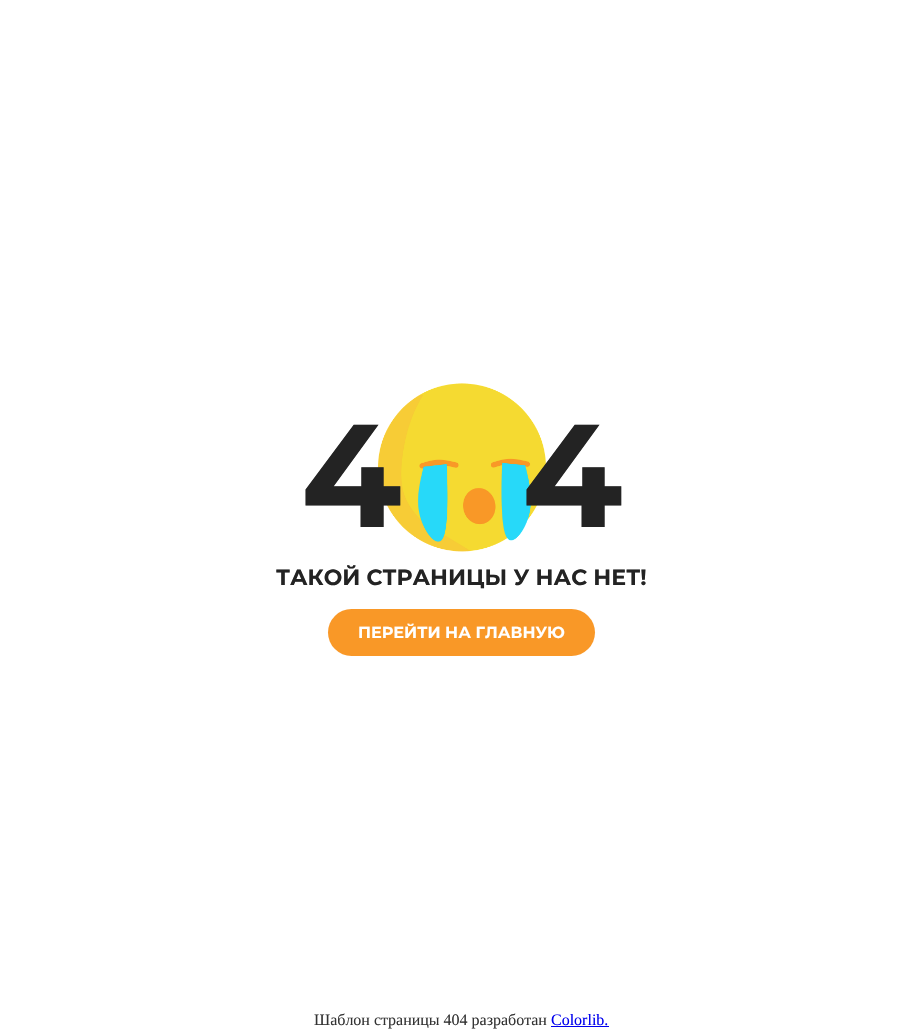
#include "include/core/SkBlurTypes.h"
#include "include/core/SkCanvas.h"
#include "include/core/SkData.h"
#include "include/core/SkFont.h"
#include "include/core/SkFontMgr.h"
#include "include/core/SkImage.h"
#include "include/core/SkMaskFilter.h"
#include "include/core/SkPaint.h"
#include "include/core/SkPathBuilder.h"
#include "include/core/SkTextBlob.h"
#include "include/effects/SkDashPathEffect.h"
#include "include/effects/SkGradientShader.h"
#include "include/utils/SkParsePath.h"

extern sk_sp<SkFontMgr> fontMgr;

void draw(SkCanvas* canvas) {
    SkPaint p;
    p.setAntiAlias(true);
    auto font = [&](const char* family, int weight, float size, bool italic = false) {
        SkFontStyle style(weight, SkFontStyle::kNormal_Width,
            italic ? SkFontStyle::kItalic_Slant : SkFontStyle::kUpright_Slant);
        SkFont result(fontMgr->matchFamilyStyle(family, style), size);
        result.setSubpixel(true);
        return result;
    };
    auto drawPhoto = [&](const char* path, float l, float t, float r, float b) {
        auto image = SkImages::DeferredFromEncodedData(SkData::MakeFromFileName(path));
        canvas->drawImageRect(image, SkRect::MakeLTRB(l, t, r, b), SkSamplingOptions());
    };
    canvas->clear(0xFFFFFFFF);
    drawPhoto("media/1.png", 378, 383, 546, 552);
    auto font1 = font("Montserrat", 700, 146);
    p.setColor(0xFF232323);
    canvas->drawString("4", 301, 527, font1, p);
    canvas->drawString("4", 522, 527, font1, p);
    auto font2 = font("Montserrat", 700, 22);
    canvas->drawString("ТАКОЙ СТРАНИЦЫ У НАС НЕТ!", 276, 585, font2, p);
    p.setColor(0xFFF99827);
    canvas->drawRoundRect(SkRect::MakeLTRB(328, 609, 595, 656), 23.5f, 23.5f, p);
    auto font3 = font("Montserrat", 700, 16);
    p.setColor(0xFFFFFFFF);
    canvas->drawString("ПЕРЕЙТИ НА ГЛАВНУЮ", 358, 638, font3, p);
    auto font4 = font("Liberation Serif", 400, 16);
    p.setColor(0xFF333333);
    canvas->drawString("Шаблон страницы 404 разработан", 314, 1025, font4, p);
    p.setColor(0xFF0000EE);
    canvas->drawString("Colorlib.", 551, 1025, font4, p);
    canvas->drawRect(SkRect::MakeLTRB(551, 1026, 609, 1027), p);
}
